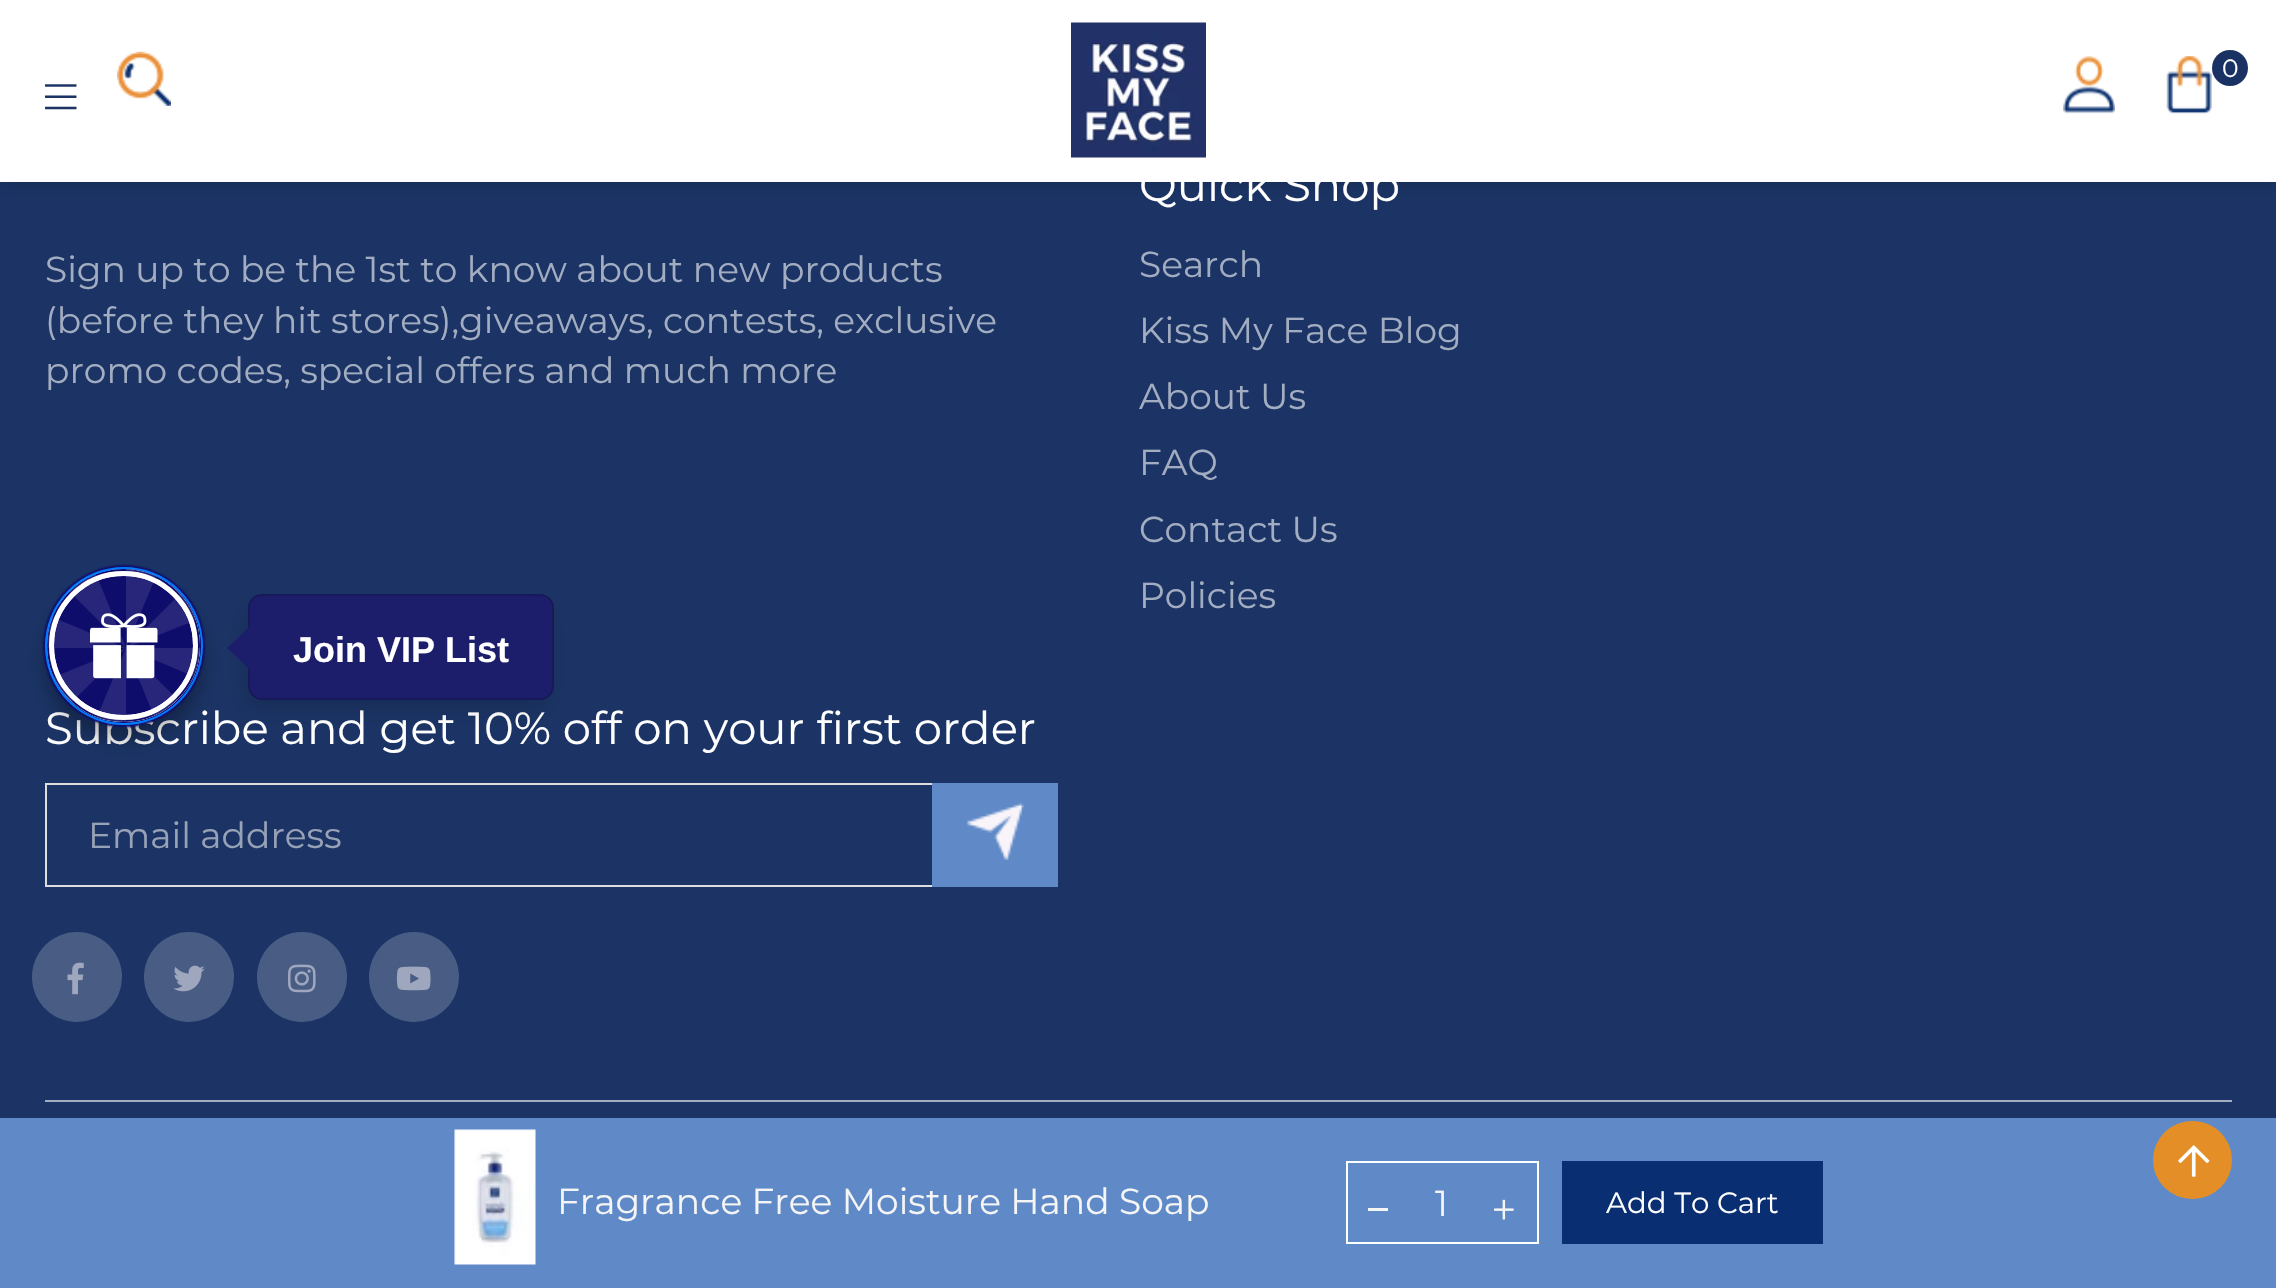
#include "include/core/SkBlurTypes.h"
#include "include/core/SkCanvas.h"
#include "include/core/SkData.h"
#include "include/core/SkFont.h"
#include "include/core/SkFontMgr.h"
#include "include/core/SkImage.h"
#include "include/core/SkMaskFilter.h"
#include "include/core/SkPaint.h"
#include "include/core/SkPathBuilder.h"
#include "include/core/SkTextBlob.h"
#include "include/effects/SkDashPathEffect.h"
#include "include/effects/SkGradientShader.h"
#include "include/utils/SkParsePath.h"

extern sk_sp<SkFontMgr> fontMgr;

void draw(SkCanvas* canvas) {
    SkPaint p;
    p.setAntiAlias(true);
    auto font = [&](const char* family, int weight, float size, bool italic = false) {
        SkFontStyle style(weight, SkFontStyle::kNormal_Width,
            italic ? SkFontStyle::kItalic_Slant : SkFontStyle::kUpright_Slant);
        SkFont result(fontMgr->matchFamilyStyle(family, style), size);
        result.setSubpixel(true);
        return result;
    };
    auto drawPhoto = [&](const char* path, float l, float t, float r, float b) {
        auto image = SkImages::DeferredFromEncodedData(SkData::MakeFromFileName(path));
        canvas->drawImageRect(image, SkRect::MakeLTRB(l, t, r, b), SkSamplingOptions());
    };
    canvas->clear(0xFF1B3465);
    p.setColor(0x33000000);
    p.setMaskFilter(SkMaskFilter::MakeBlur(kNormal_SkBlurStyle, 8));
    canvas->drawRect(SkRect::MakeLTRB(0, 0, 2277, 182), p);
    p.setMaskFilter(nullptr);
    p.setColor(0xFFFFFFFF);
    canvas->drawRect(SkRect::MakeLTRB(0, 0, 2276, 182), p);
    drawPhoto("media/1.png", 45, 84, 77, 110);
    drawPhoto("media/2.png", 117, 51, 171, 106);
    drawPhoto("media/3.png", 1071, 22, 1206, 158);
    drawPhoto("media/4.png", 2063, 56, 2115, 114);
    drawPhoto("media/5.png", 2166, 56, 2212, 114);
    p.setColor(0xFF193263);
    canvas->drawCircle(2230, 68, 18, p);
    auto font1 = font("Montserrat", 400, 25);
    p.setColor(0xFFFFFFFF);
    canvas->drawString("0", 2222, 77, font1, p);
    auto font2 = font("Montserrat", 400, 36);
    p.setColor(0xFFA3ADC1);
    {
        const struct { const char* s; float x, y; } items[] = {
            {"Sign up to be the 1st to know about new products", 45, 282},
            {"(before they hit stores),giveaways, contests, exclusive", 45, 333},
            {"promo codes, special offers and much more", 45, 383},
        };
        for (auto [s, x, y] : items) {
            canvas->drawString(s, x, y, font2, p);
        }
    }
    auto font3 = font("Montserrat", 400, 45);
    p.setColor(0xFFFFFFFF);
    canvas->drawString("Quick Shop", 1139, 201, font3, p);
    p.setColor(0xFFA3ADC1);
    {
        const struct { const char* s; float x, y; } items[] = {
            {"Search", 1139, 277},
            {"Kiss My Face Blog", 1139, 343},
            {"About Us", 1139, 409},
            {"FAQ", 1139, 475},
            {"Contact Us", 1139, 542},
            {"Policies", 1139, 608},
        };
        for (auto [s, x, y] : items) {
            canvas->drawString(s, x, y, font2, p);
        }
    }
    p.setColor(0xFFFFFFFF);
    canvas->drawString("Subscribe and get 10% off on your first order", 45, 744, font3, p);
    p.setStyle(SkPaint::kStroke_Style);
    p.setStrokeWidth(2);
    p.setColor(0xFFDDDDDD);
    canvas->drawRect(SkRect::MakeLTRB(46, 784, 1057, 886), p);
    p.setStyle(SkPaint::kFill_Style);
    p.setColor(0xFF98A2B6);
    canvas->drawString("Email address", 88, 848, font2, p);
    p.setColor(0xFF5F8AC7);
    canvas->drawRect(SkRect::MakeLTRB(932, 783, 1058, 887), p);
    drawPhoto("media/6.png", 966, 803, 1024, 861);
    p.setColor(0xFF495D84);
    canvas->drawCircle(77, 977, 45, p);
    drawPhoto("media/7.png", 67, 962, 84, 995);
    canvas->drawCircle(189, 977, 45, p);
    drawPhoto("media/8.png", 173, 965, 205, 992);
    canvas->drawCircle(302, 977, 45, p);
    drawPhoto("media/9.png", 288, 964, 316, 993);
    canvas->drawCircle(414, 977, 45, p);
    drawPhoto("media/10.png", 396, 966, 431, 991);
    p.setColor(0xFFA3ADC1);
    canvas->drawRect(SkRect::MakeLTRB(45, 1100, 2232, 1102), p);
    p.setColor(0x29000000);
    p.setMaskFilter(SkMaskFilter::MakeBlur(kNormal_SkBlurStyle, 11));
    canvas->drawRoundRect(SkRect::MakeLTRB(248, 610, 545, 707), 9, 9, p);
    p.setMaskFilter(nullptr);
    p.setColor(0xFF1C1E6C);
    canvas->drawRoundRect(SkRect::MakeLTRB(248, 594, 554, 700), 14, 14, p);
    p.setStyle(SkPaint::kStroke_Style);
    p.setColor(0x2E000000);
    canvas->drawRoundRect(SkRect::MakeLTRB(249, 595, 553, 699), 13, 13, p);
    p.setStyle(SkPaint::kFill_Style);
    p.setColor(0xFF1C1E6C);
    canvas->drawPath(SkPathBuilder().moveTo(250, 626).lineTo(250, 670).lineTo(227, 648).close().detach(), p);
    p.setColor(0x4D000000);
    p.setMaskFilter(SkMaskFilter::MakeBlur(kNormal_SkBlurStyle, 9));
    canvas->drawRoundRect(SkRect::MakeLTRB(45, 583, 203, 740), 78.5f, 78.5f, p);
    p.setMaskFilter(nullptr);
    p.setColor(0xFF0F0D6C);
    p.setMaskFilter(SkMaskFilter::MakeBlur(kNormal_SkBlurStyle, 1));
    canvas->drawRoundRect(SkRect::MakeLTRB(43, 565, 205, 727), 81, 81, p);
    p.setMaskFilter(nullptr);
    p.setStyle(SkPaint::kStroke_Style);
    p.setStrokeWidth(7);
    p.setColor(0xFFFFFFFF);
    canvas->drawCircle(123.5f, 645.5f, 73, p);
    canvas->drawCircle(123.5f, 645.5f, 73, p);
    p.setStrokeWidth(2);
    p.setColor(0xFF0F0D6C);
    canvas->drawCircle(123.5f, 645.5f, 75.5f, p);
    p.setColor(0xFF007BFF);
    canvas->drawCircle(124, 646, 78, p);
    p.setStyle(SkPaint::kFill_Style);
    p.setColor(0x1AFFFFFF);
    canvas->drawPath(SkPathBuilder().moveTo(96, 574).cubicTo(86, 578, 77, 584, 69, 591).lineTo(126, 648).lineTo(52, 617).cubicTo(49, 627, 47, 637, 47, 648).lineTo(126, 648).lineTo(54, 677).cubicTo(58, 687, 64, 695, 72, 702).lineTo(126, 648).lineTo(97, 717).cubicTo(106, 721, 116, 722, 126, 722).lineTo(126, 648).lineTo(154, 716).cubicTo(163, 712, 171, 706, 178, 700).lineTo(126, 648).lineTo(193, 676).cubicTo(197, 668, 200, 658, 200, 648).lineTo(126, 648).lineTo(196, 620).cubicTo(192, 610, 187, 601, 180, 594).lineTo(126, 648).lineTo(156, 576).cubicTo(147, 572, 137, 569, 126, 569).lineTo(126, 648).close().detach(), p);
    drawPhoto("media/11.png", 90, 613, 158, 679);
    auto font4 = font("Liberation Sans", 700, 36);
    p.setColor(0xFFFFFFFF);
    canvas->drawString("Join VIP List", 293, 662, font4, p);
    p.setColor(0xFF5F8AC7);
    canvas->drawRect(SkRect::MakeLTRB(0, 1118, 2276, 1288), p);
    p.setColor(0xFFE48E27);
    canvas->drawRoundRect(SkRect::MakeLTRB(2153, 1121, 2232, 1199), 39, 39, p);
    drawPhoto("media/12.png", 2178, 1145, 2210, 1177);
    drawPhoto("media/13.png", 454, 1129, 536, 1265);
    p.setColor(0xFFF5F5F5);
    canvas->drawString("Fragrance Free Moisture Hand Soap", 557, 1214, font2, p);
    p.setStyle(SkPaint::kStroke_Style);
    p.setColor(0xFFFFFFFF);
    canvas->drawRect(SkRect::MakeLTRB(1347, 1162, 1538, 1243), p);
    p.setStyle(SkPaint::kFill_Style);
    p.setColor(0xFFF5F5F5);
    canvas->drawRect(SkRect::MakeLTRB(1368, 1208, 1388, 1211), p);
    canvas->drawString("1", 1435, 1216, font2, p);
    drawPhoto("media/14.png", 1494, 1199, 1514, 1220);
    p.setColor(0xFF092E71);
    canvas->drawRect(SkRect::MakeLTRB(1562, 1161, 1823, 1244), p);
    auto font5 = font("Montserrat", 400, 29.25f);
    p.setColor(0xFFFFFFFF);
    canvas->drawString("Add To Cart", 1606, 1213, font5, p);
}
